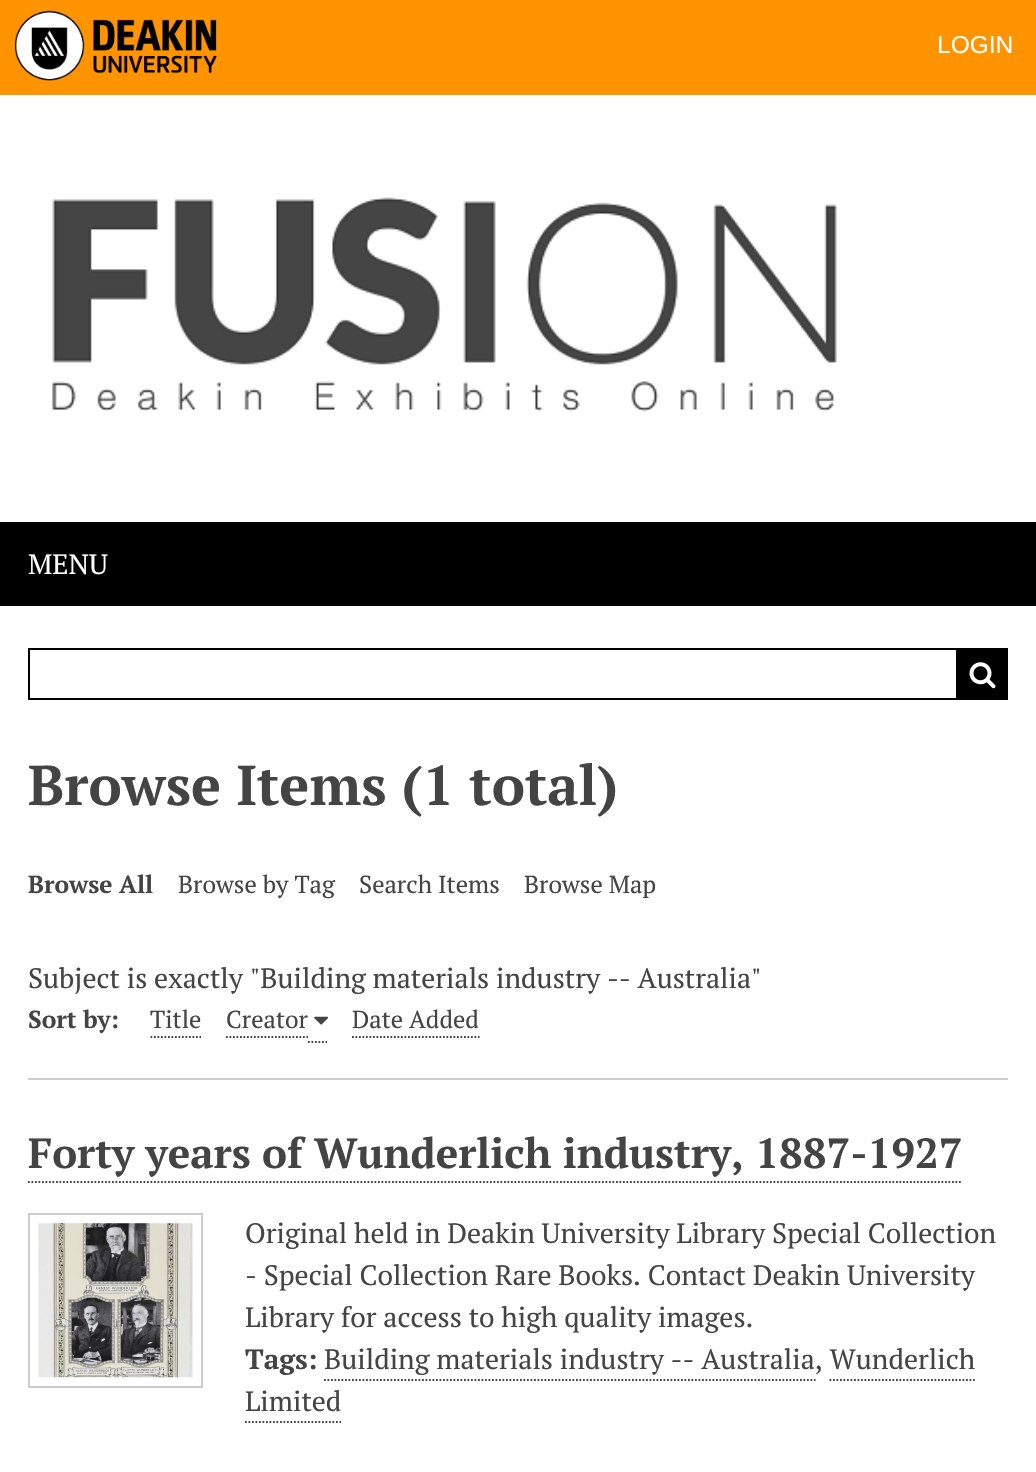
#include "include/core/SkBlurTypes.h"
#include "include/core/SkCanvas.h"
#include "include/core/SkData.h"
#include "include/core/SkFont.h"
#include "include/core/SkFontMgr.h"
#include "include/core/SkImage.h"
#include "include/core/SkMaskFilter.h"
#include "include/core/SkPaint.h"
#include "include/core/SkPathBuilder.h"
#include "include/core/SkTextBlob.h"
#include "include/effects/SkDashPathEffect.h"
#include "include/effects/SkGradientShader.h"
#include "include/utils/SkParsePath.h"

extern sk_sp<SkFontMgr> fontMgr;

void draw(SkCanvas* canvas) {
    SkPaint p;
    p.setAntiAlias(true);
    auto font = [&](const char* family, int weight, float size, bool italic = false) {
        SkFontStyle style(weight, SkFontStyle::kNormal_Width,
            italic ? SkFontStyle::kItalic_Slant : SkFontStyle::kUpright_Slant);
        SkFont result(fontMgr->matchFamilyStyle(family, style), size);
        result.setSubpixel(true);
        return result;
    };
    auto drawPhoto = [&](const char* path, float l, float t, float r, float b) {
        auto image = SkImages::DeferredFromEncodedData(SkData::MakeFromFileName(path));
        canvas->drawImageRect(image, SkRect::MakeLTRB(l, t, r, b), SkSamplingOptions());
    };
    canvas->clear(0xFFFFFFFF);
    p.setColor(0xFFFF9300);
    canvas->drawRect(SkRect::MakeLTRB(0, 0, 1036, 95), p);
    drawPhoto("media/1.png", 14, 10, 217, 81);
    auto font1 = font("Liberation Sans", 400, 24.5f);
    p.setColor(0xFFFFFFFF);
    canvas->drawString("LOGIN", 937, 53, font1, p);
    drawPhoto("media/2.png", 52, 197, 837, 412);
    p.setColor(0xFF000000);
    canvas->drawRect(SkRect::MakeLTRB(0, 522, 1036, 606), p);
    auto font2 = font("PT Serif", 400, 28);
    p.setColor(0xFFFFFFFF);
    canvas->drawString("MENU", 28, 574, font2, p);
    p.setStyle(SkPaint::kStroke_Style);
    p.setStrokeWidth(2);
    p.setColor(0xFF000000);
    canvas->drawRect(SkRect::MakeLTRB(29, 649, 1007, 699), p);
    p.setStyle(SkPaint::kFill_Style);
    canvas->drawRect(SkRect::MakeLTRB(956, 650, 1006, 698), p);
    drawPhoto("media/3.png", 969, 662, 996, 689);
    auto font3 = font("PT Serif", 700, 56);
    p.setColor(0xFF444444);
    canvas->drawString("Browse Items (1 total)", 28, 805, font3, p);
    auto font4 = font("PT Serif", 700, 24.5f);
    canvas->drawString("Browse All", 28, 893, font4, p);
    auto font5 = font("PT Serif", 400, 24.5f);
    {
        const struct { const char* s; float x, y; } items[] = {
            {"Browse by Tag", 178, 893},
            {"Search Items", 359, 893},
            {"Browse Map", 524, 893},
        };
        for (auto [s, x, y] : items) {
            canvas->drawString(s, x, y, font5, p);
        }
    }
    canvas->drawString("Subject is exactly \"Building materials industry -- Australia\"", 28, 988, font2, p);
    canvas->drawString("Sort by:", 28, 1028, font4, p);
    canvas->drawString("Title", 150, 1028, font5, p);
    p.setStyle(SkPaint::kStroke_Style);
    p.setStrokeWidth(1.8f);
    p.setPathEffect(SkDashPathEffect::Make({{1.75f, 1.75f}}, 0));
    canvas->drawPath(SkPathBuilder().moveTo(150.5f, 1037).lineTo(201, 1037).detach(), p);
    p.setPathEffect(nullptr);
    p.setPathEffect(SkDashPathEffect::Make({{1.75f, 1.75f}}, 0));
    canvas->drawPath(SkPathBuilder().moveTo(226, 1037).lineTo(308, 1037).detach(), p);
    p.setPathEffect(nullptr);
    p.setPathEffect(SkDashPathEffect::Make({{1.75f, 1.75f}}, 0));
    canvas->drawPath(SkPathBuilder().moveTo(308, 1042).lineTo(327, 1042).detach(), p);
    p.setPathEffect(nullptr);
    p.setStyle(SkPaint::kFill_Style);
    canvas->drawString("Creator", 226, 1028, font5, p);
    drawPhoto("media/4.png", 314, 1016, 329, 1025);
    canvas->drawString("Date Added", 352, 1028, font5, p);
    p.setStyle(SkPaint::kStroke_Style);
    p.setPathEffect(SkDashPathEffect::Make({{1.75f, 1.75f}}, 0));
    canvas->drawPath(SkPathBuilder().moveTo(352, 1037).lineTo(479.5f, 1037).detach(), p);
    p.setPathEffect(nullptr);
    p.setStyle(SkPaint::kFill_Style);
    p.setColor(0xFFCCCCCC);
    canvas->drawRect(SkRect::MakeLTRB(28, 1078, 1008, 1080), p);
    auto font6 = font("PT Serif", 700, 42);
    p.setColor(0xFF444444);
    canvas->drawString("Forty years of Wunderlich industry, 1887-1927", 28, 1168, font6, p);
    p.setStyle(SkPaint::kStroke_Style);
    p.setPathEffect(SkDashPathEffect::Make({{1.75f, 1.75f}}, 0));
    canvas->drawPath(SkPathBuilder().moveTo(28, 1182).lineTo(962.5f, 1182).detach(), p);
    p.setPathEffect(nullptr);
    p.setStrokeWidth(2);
    p.setColor(0xFFCCCCCC);
    canvas->drawRect(SkRect::MakeLTRB(29, 1214, 202, 1387), p);
    drawPhoto("media/5.png", 38, 1223, 193, 1378);
    p.setStyle(SkPaint::kFill_Style);
    p.setColor(0xFF444444);
    {
        const struct { const char* s; float x, y; } items[] = {
            {"Original held in Deakin University Library Special Collection", 245, 1243},
            {"- Special Collection Rare Books. Contact Deakin University", 245, 1285},
            {"Library for access to high quality images.", 245, 1327},
        };
        for (auto [s, x, y] : items) {
            canvas->drawString(s, x, y, font2, p);
        }
    }
    auto font7 = font("PT Serif", 700, 28);
    canvas->drawString("Tags:", 245, 1369, font7, p);
    canvas->drawString("Building materials industry -- Australia, Wunderlich", 324, 1369, font2, p);
    p.setStyle(SkPaint::kStroke_Style);
    p.setStrokeWidth(1.8f);
    p.setPathEffect(SkDashPathEffect::Make({{1.75f, 1.75f}}, 0));
    canvas->drawPath(SkPathBuilder().moveTo(324, 1380).lineTo(815.5f, 1380).detach(), p);
    p.setPathEffect(nullptr);
    p.setStyle(SkPaint::kFill_Style);
    canvas->drawString("Limited", 245, 1411, font2, p);
    p.setStyle(SkPaint::kStroke_Style);
    p.setPathEffect(SkDashPathEffect::Make({{1.75f, 1.75f}}, 0));
    canvas->drawPath(SkPathBuilder().moveTo(829.5f, 1380).lineTo(975, 1380).detach(), p);
    p.setPathEffect(nullptr);
    p.setPathEffect(SkDashPathEffect::Make({{1.75f, 1.75f}}, 0));
    canvas->drawPath(SkPathBuilder().moveTo(245, 1422).lineTo(341, 1422).detach(), p);
    p.setPathEffect(nullptr);
}
